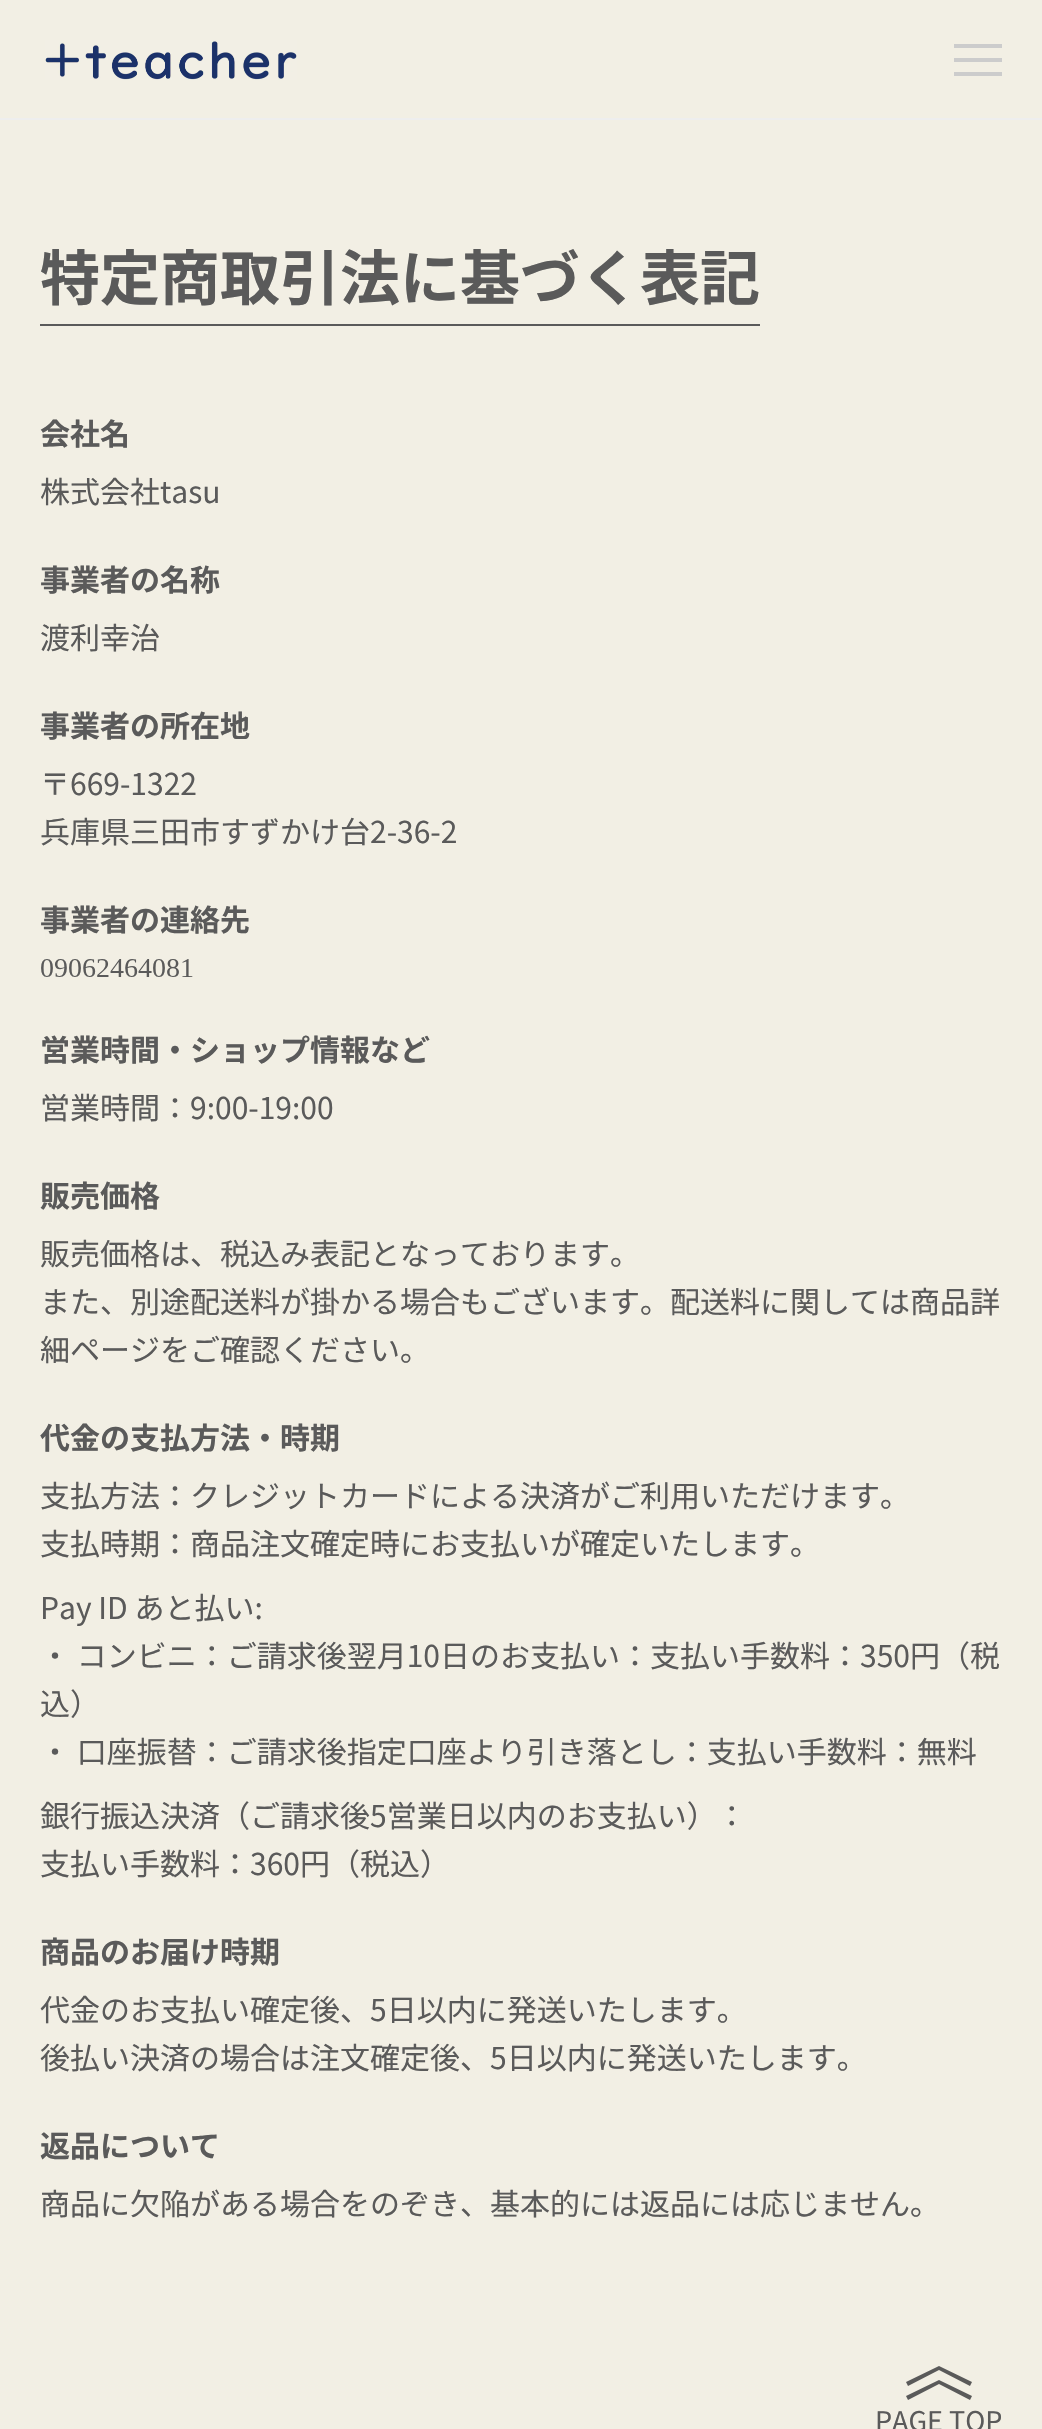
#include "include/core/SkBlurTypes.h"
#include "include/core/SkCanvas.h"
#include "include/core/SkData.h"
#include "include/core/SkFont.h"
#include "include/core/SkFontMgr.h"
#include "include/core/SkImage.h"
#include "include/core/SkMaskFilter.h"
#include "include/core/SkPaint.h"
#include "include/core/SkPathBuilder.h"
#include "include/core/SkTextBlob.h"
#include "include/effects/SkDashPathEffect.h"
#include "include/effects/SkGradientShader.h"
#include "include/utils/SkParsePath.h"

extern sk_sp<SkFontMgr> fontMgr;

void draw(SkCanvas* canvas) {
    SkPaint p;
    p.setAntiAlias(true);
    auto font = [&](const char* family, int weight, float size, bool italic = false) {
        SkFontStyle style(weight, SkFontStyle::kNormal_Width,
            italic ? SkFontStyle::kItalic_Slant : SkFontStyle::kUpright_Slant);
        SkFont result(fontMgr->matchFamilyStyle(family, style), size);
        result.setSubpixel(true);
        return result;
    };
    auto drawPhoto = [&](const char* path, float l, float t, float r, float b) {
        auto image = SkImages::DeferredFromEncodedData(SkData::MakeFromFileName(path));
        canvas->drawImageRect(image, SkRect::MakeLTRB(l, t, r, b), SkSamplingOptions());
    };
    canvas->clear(0xFFF2EFE4);
    p.setColor(0xFFEEEEEE);
    canvas->drawRect(SkRect::MakeLTRB(0, 118, 1042, 120), p);
    drawPhoto("media/1.png", 45, 40, 297, 80);
    {
        const struct { float l, t, r, b; SkColor color; } items[] = {
            {954, 44, 1002, 48, 0xFFCCCCCC},
            {954, 58, 1002, 62, 0xFFCCCCCC},
            {954, 72, 1002, 76, 0xFFCCCCCC},
        };
        for (auto [l, t, r, b, color] : items) {
            p.setColor(color);
            canvas->drawRect(SkRect::MakeLTRB(l, t, r, b), p);
        }
    }
    auto font1 = font("Noto Sans JP", 700, 60);
    p.setColor(0xFF5A5A5A);
    canvas->drawString("特定商取引法に基づく表記", 40, 300, font1, p);
    canvas->drawRect(SkRect::MakeLTRB(40, 324, 760, 326), p);
    auto font2 = font("Noto Sans JP", 700, 30);
    canvas->drawString("会社名", 40, 445, font2, p);
    auto font3 = font("Noto Sans JP", 400, 30);
    canvas->drawString("株式会社tasu", 40, 503, font3, p);
    canvas->drawString("事業者の名称", 40, 591, font2, p);
    canvas->drawString("渡利幸治", 40, 649, font3, p);
    canvas->drawString("事業者の所在地", 40, 737, font2, p);
    canvas->drawString("〒669-1322", 40, 795, font3, p);
    canvas->drawString("兵庫県三田市すずかけ台2-36-2", 40, 843, font3, p);
    canvas->drawString("事業者の連絡先", 40, 931, font2, p);
    drawPhoto("media/2.png", 41, 959, 193, 977);
    canvas->drawString("営業時間・ショップ情報など", 40, 1061, font2, p);
    canvas->drawString("営業時間：9:00-19:00", 40, 1119, font3, p);
    canvas->drawString("販売価格", 40, 1207, font2, p);
    {
        const struct { const char* s; float x, y; } items[] = {
            {"販売価格は、税込み表記となっております。", 40, 1265},
            {"また、別途配送料が掛かる場合もございます。配送料に関しては商品詳", 40, 1313},
            {"細ページをご確認ください。", 40, 1361},
        };
        for (auto [s, x, y] : items) {
            canvas->drawString(s, x, y, font3, p);
        }
    }
    canvas->drawString("代金の支払方法・時期", 40, 1449, font2, p);
    {
        const struct { const char* s; float x, y; } items[] = {
            {"支払方法：クレジットカードによる決済がご利用いただけます。", 40, 1507},
            {"支払時期：商品注文確定時にお支払いが確定いたします。", 40, 1555},
            {"Pay ID あと払い:", 40, 1619},
            {"・ コンビニ：ご請求後翌月10日のお支払い：支払い手数料：350円（税", 40, 1667},
            {"込）", 40, 1715},
            {"・ 口座振替：ご請求後指定口座より引き落とし：支払い手数料：無料", 40, 1763},
            {"銀行振込決済（ご請求後5営業日以内のお支払い）：", 40, 1827},
            {"支払い手数料：360円（税込）", 40, 1875},
        };
        for (auto [s, x, y] : items) {
            canvas->drawString(s, x, y, font3, p);
        }
    }
    canvas->drawString("商品のお届け時期", 40, 1963, font2, p);
    canvas->drawString("代金のお支払い確定後、5日以内に発送いたします。", 40, 2021, font3, p);
    canvas->drawString("後払い決済の場合は注文確定後、5日以内に発送いたします。", 40, 2069, font3, p);
    canvas->drawString("返品について", 40, 2157, font2, p);
    canvas->drawString("商品に欠陥がある場合をのぞき、基本的には返品には応じません。", 40, 2215, font3, p);
    canvas->drawPath(SkPathBuilder().moveTo(970, 2400).lineTo(939, 2384).lineTo(908, 2400).lineTo(906, 2396).lineTo(939, 2380).lineTo(972, 2396).close().detach(), p);
    canvas->drawPath(SkPathBuilder().moveTo(970, 2386).lineTo(939, 2370).lineTo(908, 2386).lineTo(906, 2382).lineTo(939, 2366).lineTo(972, 2382).close().detach(), p);
    auto font4 = font("Noto Sans JP", 400, 27);
    canvas->drawString("PAGE TOP", 875, 2431, font4, p);
}
